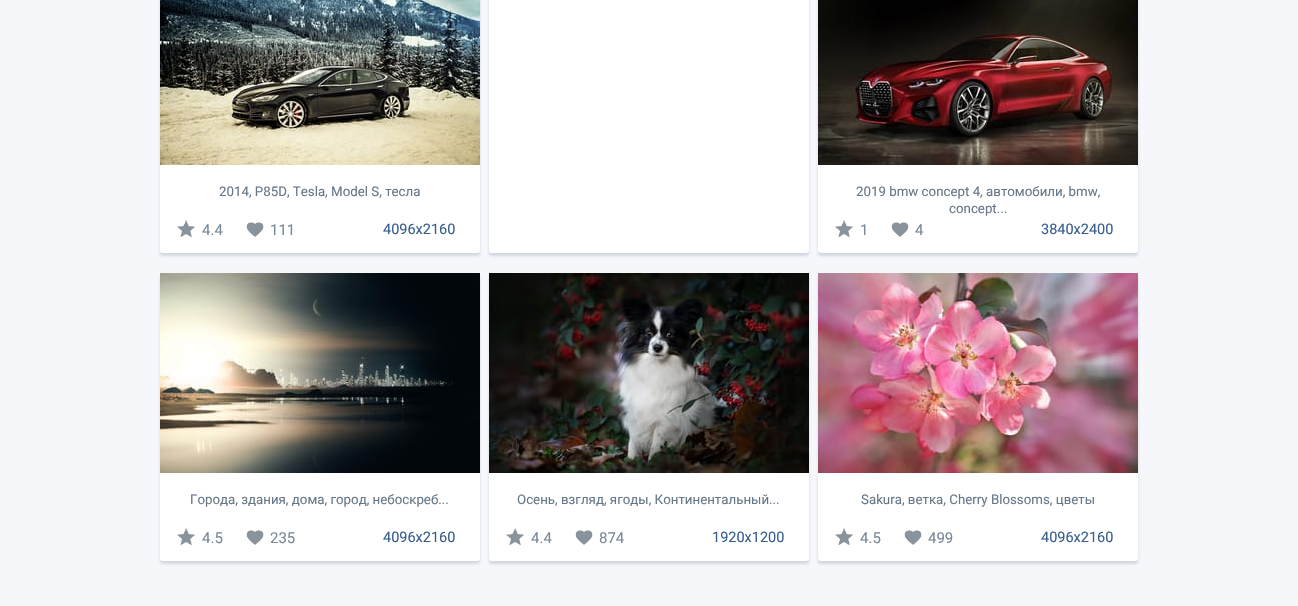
#include "include/core/SkBlurTypes.h"
#include "include/core/SkCanvas.h"
#include "include/core/SkData.h"
#include "include/core/SkFont.h"
#include "include/core/SkFontMgr.h"
#include "include/core/SkImage.h"
#include "include/core/SkMaskFilter.h"
#include "include/core/SkPaint.h"
#include "include/core/SkPathBuilder.h"
#include "include/core/SkTextBlob.h"
#include "include/effects/SkDashPathEffect.h"
#include "include/effects/SkGradientShader.h"
#include "include/utils/SkParsePath.h"

extern sk_sp<SkFontMgr> fontMgr;

void draw(SkCanvas* canvas) {
    SkPaint p;
    p.setAntiAlias(true);
    auto font = [&](const char* family, int weight, float size, bool italic = false) {
        SkFontStyle style(weight, SkFontStyle::kNormal_Width,
            italic ? SkFontStyle::kItalic_Slant : SkFontStyle::kUpright_Slant);
        SkFont result(fontMgr->matchFamilyStyle(family, style), size);
        result.setSubpixel(true);
        return result;
    };
    auto drawPhoto = [&](const char* path, float l, float t, float r, float b) {
        auto image = SkImages::DeferredFromEncodedData(SkData::MakeFromFileName(path));
        canvas->drawImageRect(image, SkRect::MakeLTRB(l, t, r, b), SkSamplingOptions());
    };
    canvas->clear(0xFFF6F7FB);
    p.setColor(0x3337506E);
    p.setMaskFilter(SkMaskFilter::MakeBlur(kNormal_SkBlurStyle, 1.5f));
    canvas->drawRoundRect(SkRect::MakeLTRB(160, -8, 480, 256), 3, 3, p);
    p.setMaskFilter(nullptr);
    p.setColor(0xFFFFFFFF);
    canvas->drawRoundRect(SkRect::MakeLTRB(160, -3, 480, 253), 3, 3, p);
    drawPhoto("media/1.png", 160, 0, 480, 165);
    auto font1 = font("Roboto", 400, 13.3f);
    p.setColor(0xFF667788);
    canvas->drawString("2014, P85D, Tesla, Model S, тесла", 219, 196, font1, p);
    drawPhoto("media/2.png", 177, 220, 195, 238);
    auto font2 = font("Roboto", 400, 15);
    p.setColor(0xFF778899);
    canvas->drawString("4.4", 202, 235, font2, p);
    drawPhoto("media/3.png", 246, 222, 264, 237);
    canvas->drawString("111", 270, 235, font2, p);
    auto font3 = font("Roboto", 400, 14.5f);
    p.setColor(0xFF355D8F);
    canvas->drawString("4096x2160", 383, 234, font3, p);
    p.setColor(0x3337506E);
    p.setMaskFilter(SkMaskFilter::MakeBlur(kNormal_SkBlurStyle, 1.5f));
    canvas->drawRoundRect(SkRect::MakeLTRB(489, -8, 809, 256), 3, 3, p);
    p.setMaskFilter(nullptr);
    p.setColor(0xFFFFFFFF);
    canvas->drawRoundRect(SkRect::MakeLTRB(489, -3, 809, 253), 3, 3, p);
    p.setColor(0x3337506E);
    p.setMaskFilter(SkMaskFilter::MakeBlur(kNormal_SkBlurStyle, 1.5f));
    canvas->drawRoundRect(SkRect::MakeLTRB(818, -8, 1138, 256), 3, 3, p);
    p.setMaskFilter(nullptr);
    p.setColor(0xFFFFFFFF);
    canvas->drawRoundRect(SkRect::MakeLTRB(818, -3, 1138, 253), 3, 3, p);
    drawPhoto("media/4.png", 818, 0, 1138, 165);
    p.setColor(0xFF667788);
    canvas->drawString("2019 bmw concept 4, автомобили, bmw,", 856, 196, font1, p);
    canvas->drawString("concept...", 949, 213, font1, p);
    drawPhoto("media/5.png", 835, 220, 853, 238);
    p.setColor(0xFF778899);
    canvas->drawString("1", 860, 235, font2, p);
    drawPhoto("media/3.png", 891, 222, 909, 237);
    canvas->drawString("4", 915, 235, font2, p);
    p.setColor(0xFF355D8F);
    canvas->drawString("3840x2400", 1041, 234, font3, p);
    p.setColor(0x3337506E);
    p.setMaskFilter(SkMaskFilter::MakeBlur(kNormal_SkBlurStyle, 1.5f));
    canvas->drawRoundRect(SkRect::MakeLTRB(160, 276, 480, 564), 3, 3, p);
    p.setMaskFilter(nullptr);
    p.setColor(0xFFFFFFFF);
    canvas->drawRoundRect(SkRect::MakeLTRB(160, 273, 480, 561), 3, 3, p);
    drawPhoto("media/6.png", 160, 273, 480, 473);
    p.setColor(0xFF667788);
    canvas->drawString("Города, здания, дома, город, небоскреб...", 190, 504, font1, p);
    drawPhoto("media/2.png", 177, 528, 195, 546);
    p.setColor(0xFF778899);
    canvas->drawString("4.5", 202, 543, font2, p);
    drawPhoto("media/3.png", 246, 530, 264, 545);
    canvas->drawString("235", 270, 543, font2, p);
    p.setColor(0xFF355D8F);
    canvas->drawString("4096x2160", 383, 542, font3, p);
    p.setColor(0x3337506E);
    p.setMaskFilter(SkMaskFilter::MakeBlur(kNormal_SkBlurStyle, 1.5f));
    canvas->drawRoundRect(SkRect::MakeLTRB(489, 276, 809, 564), 3, 3, p);
    p.setMaskFilter(nullptr);
    p.setColor(0xFFFFFFFF);
    canvas->drawRoundRect(SkRect::MakeLTRB(489, 273, 809, 561), 3, 3, p);
    drawPhoto("media/7.png", 489, 273, 809, 473);
    p.setColor(0xFF667788);
    canvas->drawString("Осень, взгляд, ягоды, Континентальный...", 517, 504, font1, p);
    drawPhoto("media/5.png", 506, 528, 524, 546);
    p.setColor(0xFF778899);
    canvas->drawString("4.4", 531, 543, font2, p);
    drawPhoto("media/8.png", 575, 530, 593, 545);
    canvas->drawString("874", 599, 543, font2, p);
    p.setColor(0xFF355D8F);
    canvas->drawString("1920x1200", 712, 542, font3, p);
    p.setColor(0x3337506E);
    p.setMaskFilter(SkMaskFilter::MakeBlur(kNormal_SkBlurStyle, 1.5f));
    canvas->drawRoundRect(SkRect::MakeLTRB(818, 276, 1138, 564), 3, 3, p);
    p.setMaskFilter(nullptr);
    p.setColor(0xFFFFFFFF);
    canvas->drawRoundRect(SkRect::MakeLTRB(818, 273, 1138, 561), 3, 3, p);
    drawPhoto("media/9.png", 818, 273, 1138, 473);
    p.setColor(0xFF667788);
    canvas->drawString("Sakura, ветка, Cherry Blossoms, цветы", 861, 504, font1, p);
    drawPhoto("media/5.png", 835, 528, 853, 546);
    p.setColor(0xFF778899);
    canvas->drawString("4.5", 860, 543, font2, p);
    drawPhoto("media/8.png", 904, 530, 922, 545);
    canvas->drawString("499", 928, 543, font2, p);
    p.setColor(0xFF355D8F);
    canvas->drawString("4096x2160", 1041, 542, font3, p);
}
